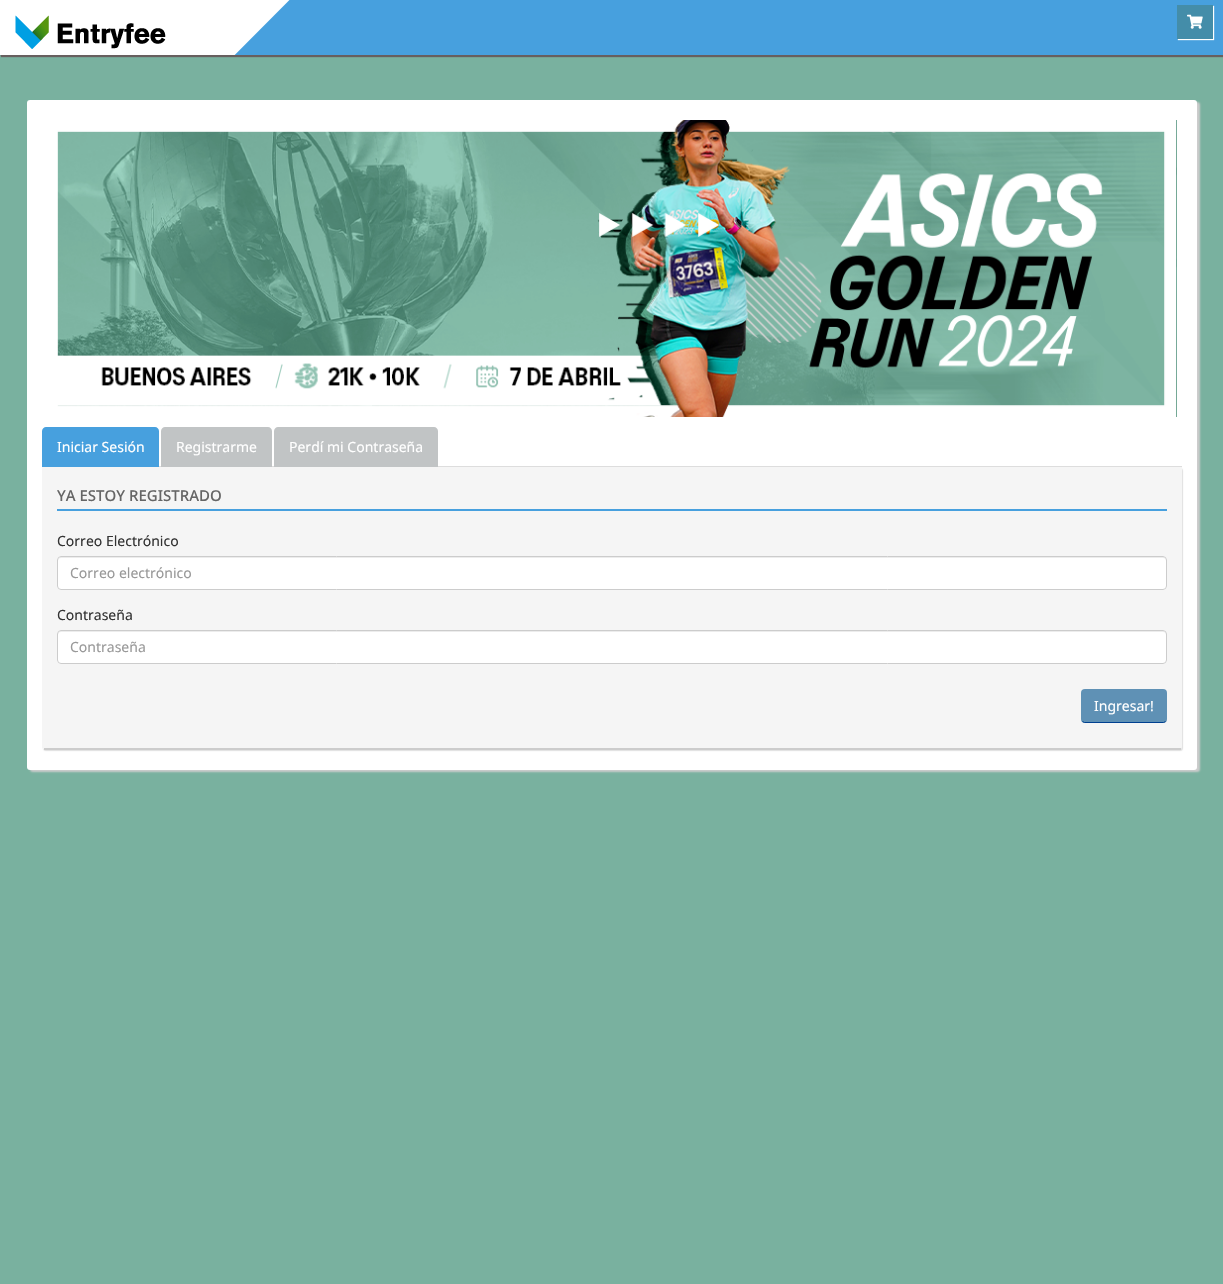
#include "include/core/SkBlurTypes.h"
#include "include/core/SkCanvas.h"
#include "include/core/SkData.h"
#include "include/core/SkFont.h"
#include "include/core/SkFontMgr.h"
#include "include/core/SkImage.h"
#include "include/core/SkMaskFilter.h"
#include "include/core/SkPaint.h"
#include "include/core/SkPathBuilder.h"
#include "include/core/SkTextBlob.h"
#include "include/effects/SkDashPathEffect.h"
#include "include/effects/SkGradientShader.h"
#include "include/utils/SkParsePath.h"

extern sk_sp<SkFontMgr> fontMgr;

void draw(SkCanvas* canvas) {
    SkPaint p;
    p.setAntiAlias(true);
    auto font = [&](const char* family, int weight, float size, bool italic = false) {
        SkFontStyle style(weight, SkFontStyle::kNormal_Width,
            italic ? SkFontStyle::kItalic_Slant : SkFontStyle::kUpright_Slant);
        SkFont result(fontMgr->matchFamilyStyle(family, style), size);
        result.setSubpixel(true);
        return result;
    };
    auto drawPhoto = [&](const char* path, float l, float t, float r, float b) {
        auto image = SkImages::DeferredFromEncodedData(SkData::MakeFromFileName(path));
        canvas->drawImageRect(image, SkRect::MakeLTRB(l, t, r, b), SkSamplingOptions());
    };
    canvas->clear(0xFF79B19F);
    p.setColor(0xFF675F5F);
    p.setMaskFilter(SkMaskFilter::MakeBlur(kNormal_SkBlurStyle, 0.5f));
    canvas->drawRect(SkRect::MakeLTRB(1, 1, 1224, 57), p);
    p.setMaskFilter(nullptr);
    p.setMaskFilter(SkMaskFilter::MakeBlur(kNormal_SkBlurStyle, 0.5f));
    canvas->drawRect(SkRect::MakeLTRB(1, 1, 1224, 56), p);
    p.setMaskFilter(nullptr);
    p.setColor(0xFF47A0DE);
    canvas->drawRect(SkRect::MakeLTRB(290, 0, 1223, 55), p);
    drawPhoto("media/1.png", 0, 0, 290, 55);
    drawPhoto("media/2.png", 15, 15, 166, 49);
    p.setColor(0xFFFFFFFF);
    p.setMaskFilter(SkMaskFilter::MakeBlur(kNormal_SkBlurStyle, 0.5f));
    canvas->drawRect(SkRect::MakeLTRB(1178, 6, 1214, 40), p);
    p.setMaskFilter(nullptr);
    p.setColor(0xFF448DA9);
    canvas->drawRect(SkRect::MakeLTRB(1177, 5, 1213, 39), p);
    drawPhoto("media/3.png", 1187, 14, 1203, 29);
    p.setColor(0xFFCCCCCC);
    p.setMaskFilter(SkMaskFilter::MakeBlur(kNormal_SkBlurStyle, 1));
    canvas->drawRoundRect(SkRect::MakeLTRB(30, 102, 1200, 772), 3, 3, p);
    p.setMaskFilter(nullptr);
    p.setColor(0xFFFFFFFF);
    canvas->drawRoundRect(SkRect::MakeLTRB(27, 100, 1197, 770), 3, 3, p);
    drawPhoto("media/4.png", 57, 120, 1177, 417);
    p.setColor(0xFFDDDDDD);
    canvas->drawRect(SkRect::MakeLTRB(159, 466, 1182, 467), p);
    p.setColor(0xFF47A0DE);
    canvas->drawPath(SkPathBuilder().moveTo(46, 427).lineTo(155, 427).cubicTo(157, 427, 159, 429, 159, 431).lineTo(159, 467).lineTo(42, 467).lineTo(42, 431).cubicTo(42, 429, 44, 427, 46, 427).close().detach(), p);
    auto font1 = font("Noto Sans", 400, 14);
    p.setColor(0xFFFFFFFF);
    canvas->drawString("Iniciar Sesión", 57, 452, font1, p);
    p.setColor(0xFFC1C4C5);
    canvas->drawPath(SkPathBuilder().moveTo(165, 427).lineTo(268, 427).cubicTo(270, 427, 272, 429, 272, 431).lineTo(272, 467).lineTo(161, 467).lineTo(161, 431).cubicTo(161, 429, 163, 427, 165, 427).close().detach(), p);
    p.setColor(0xFFFFFFFF);
    canvas->drawString("Registrarme", 176, 452, font1, p);
    p.setColor(0xFFC1C4C5);
    canvas->drawPath(SkPathBuilder().moveTo(278, 427).lineTo(434, 427).cubicTo(436, 427, 438, 429, 438, 431).lineTo(438, 467).lineTo(274, 467).lineTo(274, 431).cubicTo(274, 429, 276, 427, 278, 427).close().detach(), p);
    p.setColor(0xFFFFFFFF);
    canvas->drawString("Perdí mi Contraseña", 289, 452, font1, p);
    p.setColor(0xFFE0E0E0);
    p.setMaskFilter(SkMaskFilter::MakeBlur(kNormal_SkBlurStyle, 0.5f));
    canvas->drawRoundRect(SkRect::MakeLTRB(43, 468, 1183, 751), 3, 3, p);
    p.setMaskFilter(nullptr);
    p.setColor(0xFFF5F5F5);
    canvas->drawPath(SkPathBuilder().moveTo(42, 467).lineTo(1182, 467).lineTo(1182, 747).cubicTo(1182, 748.5f, 1180.5f, 750, 1179, 750).lineTo(45, 750).cubicTo(43.5f, 750, 42, 748.5f, 42, 747).close().detach(), p);
    p.setColor(0xFFCCCCCC);
    canvas->drawRect(SkRect::MakeLTRB(44, 748, 1181, 750), p);
    p.setColor(0xFF47A0DE);
    canvas->drawRect(SkRect::MakeLTRB(57, 509, 1167, 511), p);
    auto font2 = font("Noto Sans", 500, 15);
    p.setColor(0xFF666666);
    canvas->drawString("YA ESTOY REGISTRADO", 57, 501, font2, p);
    p.setColor(0xFF333333);
    canvas->drawString("Correo Electrónico", 57, 546, font1, p);
    p.setColor(0xFFFFFFFF);
    canvas->drawRoundRect(SkRect::MakeLTRB(57, 556, 1167, 590), 4, 4, p);
    p.setColor(0xFFECECEC);
    canvas->drawPath(SkPathBuilder().moveTo(61, 558).lineTo(1163, 558).cubicTo(1165, 558, 1166, 559, 1166, 561).lineTo(1166, 560).cubicTo(1166, 558, 1165, 557, 1163, 557).lineTo(61, 557).cubicTo(59, 557, 58, 558, 58, 560).lineTo(58, 561).cubicTo(58, 559, 59, 558, 61, 558).close().detach(), p);
    p.setStyle(SkPaint::kStroke_Style);
    p.setStrokeWidth(1);
    p.setColor(0xFFCCCCCC);
    canvas->drawRoundRect(SkRect::MakeLTRB(57.5f, 556.5f, 1166.5f, 589.5f), 3.5f, 3.5f, p);
    p.setStyle(SkPaint::kFill_Style);
    p.setColor(0xFF999999);
    canvas->drawString("Correo electrónico", 70, 578, font1, p);
    p.setColor(0xFF333333);
    canvas->drawString("Contraseña", 57, 620, font1, p);
    p.setColor(0xFFFFFFFF);
    canvas->drawRoundRect(SkRect::MakeLTRB(57, 630, 1167, 664), 4, 4, p);
    p.setColor(0xFFECECEC);
    canvas->drawPath(SkPathBuilder().moveTo(61, 632).lineTo(1163, 632).cubicTo(1165, 632, 1166, 633, 1166, 635).lineTo(1166, 634).cubicTo(1166, 632, 1165, 631, 1163, 631).lineTo(61, 631).cubicTo(59, 631, 58, 632, 58, 634).lineTo(58, 635).cubicTo(58, 633, 59, 632, 61, 632).close().detach(), p);
    p.setStyle(SkPaint::kStroke_Style);
    p.setColor(0xFFCCCCCC);
    canvas->drawRoundRect(SkRect::MakeLTRB(57.5f, 630.5f, 1166.5f, 663.5f), 3.5f, 3.5f, p);
    p.setStyle(SkPaint::kFill_Style);
    p.setColor(0xFF999999);
    canvas->drawString("Contraseña", 70, 652, font1, p);
    p.setColor(0xFF5F91B5);
    canvas->drawRoundRect(SkRect::MakeLTRB(1081, 689, 1167, 723), 4, 4, p);
    p.setStyle(SkPaint::kStroke_Style);
    p.setColor(0xFF004090);
    canvas->drawPath(SkPathBuilder().moveTo(1165.5f, 721.5f).lineTo(1163.5f, 722.5f).lineTo(1084.5f, 722.5f).lineTo(1082.5f, 721.5f).detach(), p);
    p.setStyle(SkPaint::kFill_Style);
    p.setColor(0xFFFFFFFF);
    canvas->drawString("Ingresar!", 1094, 711, font1, p);
}
